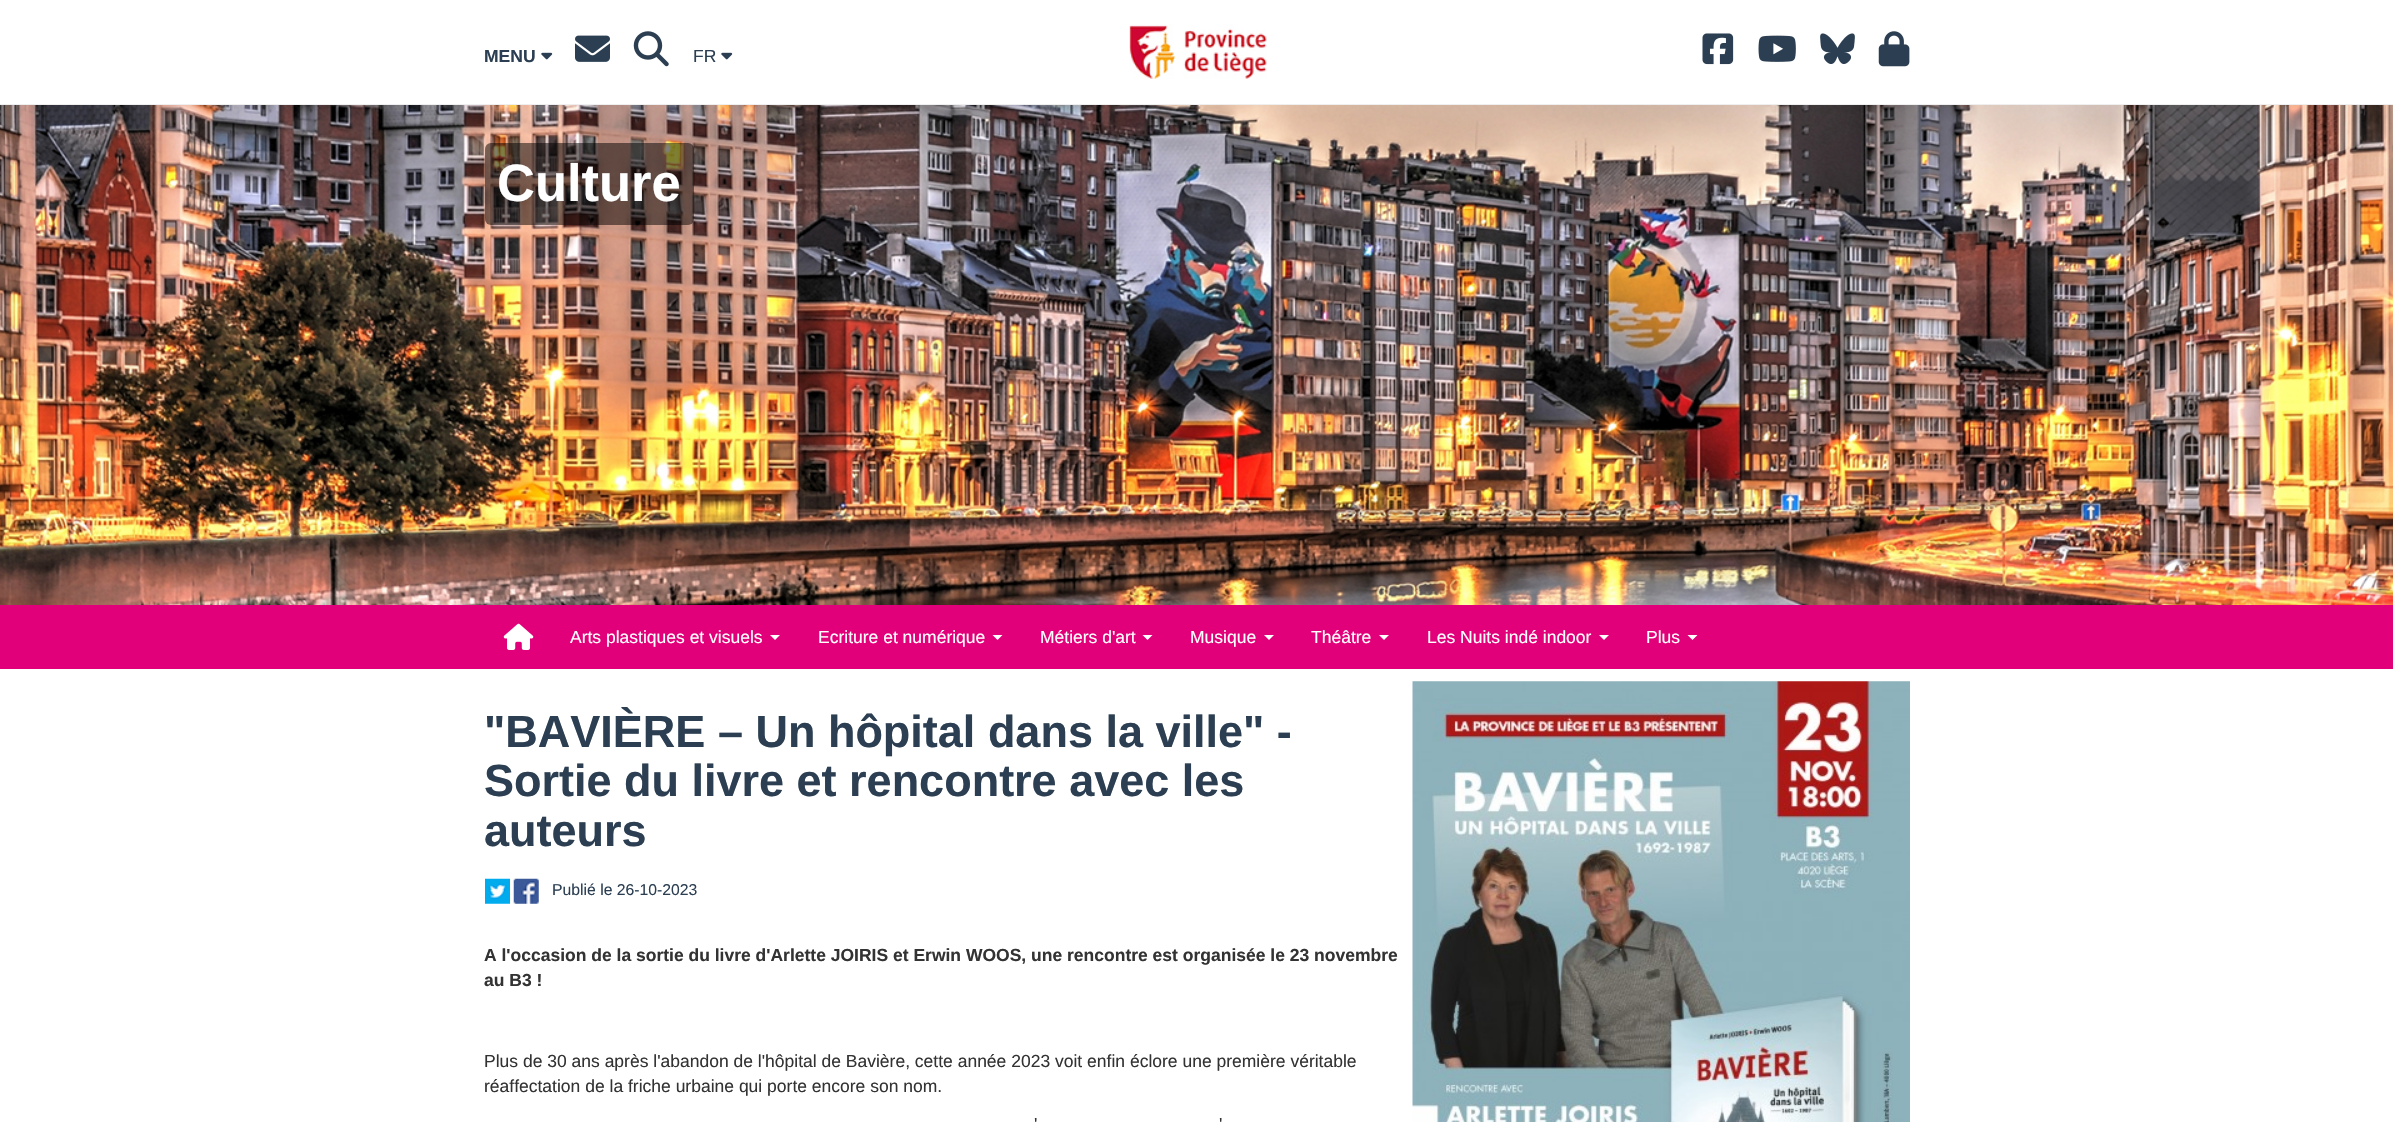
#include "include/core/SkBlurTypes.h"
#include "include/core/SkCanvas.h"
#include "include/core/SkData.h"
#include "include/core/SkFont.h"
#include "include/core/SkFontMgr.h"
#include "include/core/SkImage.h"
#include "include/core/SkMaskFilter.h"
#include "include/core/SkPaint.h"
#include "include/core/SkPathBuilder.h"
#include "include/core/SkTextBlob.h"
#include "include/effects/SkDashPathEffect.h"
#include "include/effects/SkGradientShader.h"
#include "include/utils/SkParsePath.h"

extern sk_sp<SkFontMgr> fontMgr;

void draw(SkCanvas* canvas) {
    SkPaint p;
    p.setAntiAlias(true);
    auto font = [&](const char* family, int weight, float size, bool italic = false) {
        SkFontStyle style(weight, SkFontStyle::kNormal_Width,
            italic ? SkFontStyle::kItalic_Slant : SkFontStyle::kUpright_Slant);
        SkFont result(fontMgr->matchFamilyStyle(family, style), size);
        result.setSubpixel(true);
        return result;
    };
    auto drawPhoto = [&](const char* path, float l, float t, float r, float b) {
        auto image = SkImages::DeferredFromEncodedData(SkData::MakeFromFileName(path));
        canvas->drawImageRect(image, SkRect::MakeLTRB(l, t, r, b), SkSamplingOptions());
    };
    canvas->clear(0xFFFFFFFF);
    p.setColor(0xFFEFEFEF);
    canvas->drawRect(SkRect::MakeLTRB(0, 104, 2393, 105), p);
    auto font1 = font("Liberation Sans", 700, 17.5f);
    p.setColor(0xFF2C3F52);
    canvas->drawString("MENU", 484, 62, font1, p);
    drawPhoto("media/1.png", 541, 52, 553, 60);
    drawPhoto("media/2.png", 575, 35, 610, 62);
    drawPhoto("media/3.png", 633, 31, 669, 67);
    auto font2 = font("Liberation Sans", 400, 17.5f);
    canvas->drawString("FR", 693, 62, font2, p);
    drawPhoto("media/1.png", 721, 52, 733, 60);
    drawPhoto("media/4.png", 1129, 24, 1267, 79);
    drawPhoto("media/5.png", 1702, 33, 1734, 65);
    drawPhoto("media/6.png", 1758, 35, 1796, 62);
    drawPhoto("media/7.png", 1820, 33, 1855, 64);
    drawPhoto("media/8.png", 1878, 31, 1910, 67);
    drawPhoto("media/9.png", 0, 105, 2393, 605);
    p.setColor(0x80000000);
    canvas->drawRoundRect(SkRect::MakeLTRB(485, 143, 694, 225), 6, 6, p);
    auto font3 = font("Liberation Sans", 700, 52.5f);
    p.setColor(0xFFFFFFFF);
    canvas->drawString("Culture", 497, 201, font3, p);
    p.setColor(0xFFE2007A);
    canvas->drawRect(SkRect::MakeLTRB(0, 605, 2393, 669), p);
    drawPhoto("media/10.png", 503, 623, 534, 650);
    p.setColor(0xFFFFFFFF);
    canvas->drawString("Arts plastiques et visuels", 570, 643, font2, p);
    canvas->drawPath(SkPathBuilder().moveTo(770, 635).lineTo(780, 635).lineTo(775, 640).close().detach(), p);
    canvas->drawString("Ecriture et numérique", 818, 643, font2, p);
    canvas->drawPath(SkPathBuilder().moveTo(992.5f, 635).lineTo(1002.5f, 635).lineTo(997.5f, 640).close().detach(), p);
    canvas->drawString("Métiers d'art", 1040, 643, font2, p);
    canvas->drawPath(SkPathBuilder().moveTo(1142.5f, 635).lineTo(1152.5f, 635).lineTo(1147.5f, 640).close().detach(), p);
    canvas->drawString("Musique", 1190, 643, font2, p);
    canvas->drawPath(SkPathBuilder().moveTo(1264, 635).lineTo(1274, 635).lineTo(1269, 640).close().detach(), p);
    canvas->drawString("Théâtre", 1311, 643, font2, p);
    canvas->drawPath(SkPathBuilder().moveTo(1379, 635).lineTo(1389, 635).lineTo(1384, 640).close().detach(), p);
    canvas->drawString("Les Nuits indé indoor", 1427, 643, font2, p);
    canvas->drawPath(SkPathBuilder().moveTo(1599, 635).lineTo(1609, 635).lineTo(1604, 640).close().detach(), p);
    canvas->drawString("Plus", 1646, 643, font2, p);
    canvas->drawPath(SkPathBuilder().moveTo(1687.5f, 635).lineTo(1697.5f, 635).lineTo(1692.5f, 640).close().detach(), p);
    auto font4 = font("Liberation Sans", 700, 45);
    p.setColor(0xFF2C3F52);
    {
        const struct { const char* s; float x, y; } items[] = {
            {"\"BAVIÈRE – Un hôpital dans la ville\" -", 484, 747},
            {"Sortie du livre et rencontre avec les", 484, 796},
            {"auteurs", 484, 846},
        };
        for (auto [s, x, y] : items) {
            canvas->drawString(s, x, y, font4, p);
        }
    }
    drawPhoto("media/11.png", 485, 878, 510, 904);
    drawPhoto("media/12.png", 513, 878, 539, 904);
    auto font5 = font("Liberation Sans", 400, 15.75f);
    canvas->drawString("Publié le 26-10-2023", 552, 895, font5, p);
    drawPhoto("media/13.png", 1412, 681, 1910, 1122);
    p.setColor(0xFF333333);
    canvas->drawString("A l'occasion de la sortie du livre d'Arlette JOIRIS et Erwin WOOS, une rencontre est organisée le 23 novembre", 484, 961, font1, p);
    canvas->drawString("au B3 !", 484, 986, font1, p);
    {
        const struct { const char* s; float x, y; } items[] = {
            {"Plus de 30 ans après l'abandon de l'hôpital de Bavière, cette année 2023 voit enfin éclore une première véritable", 484, 1067},
            {"réaffectation de la friche urbaine qui porte encore son nom.", 484, 1092},
            {"'", 1034, 1130},
            {"'", 1219, 1130},
        };
        for (auto [s, x, y] : items) {
            canvas->drawString(s, x, y, font2, p);
        }
    }
}
